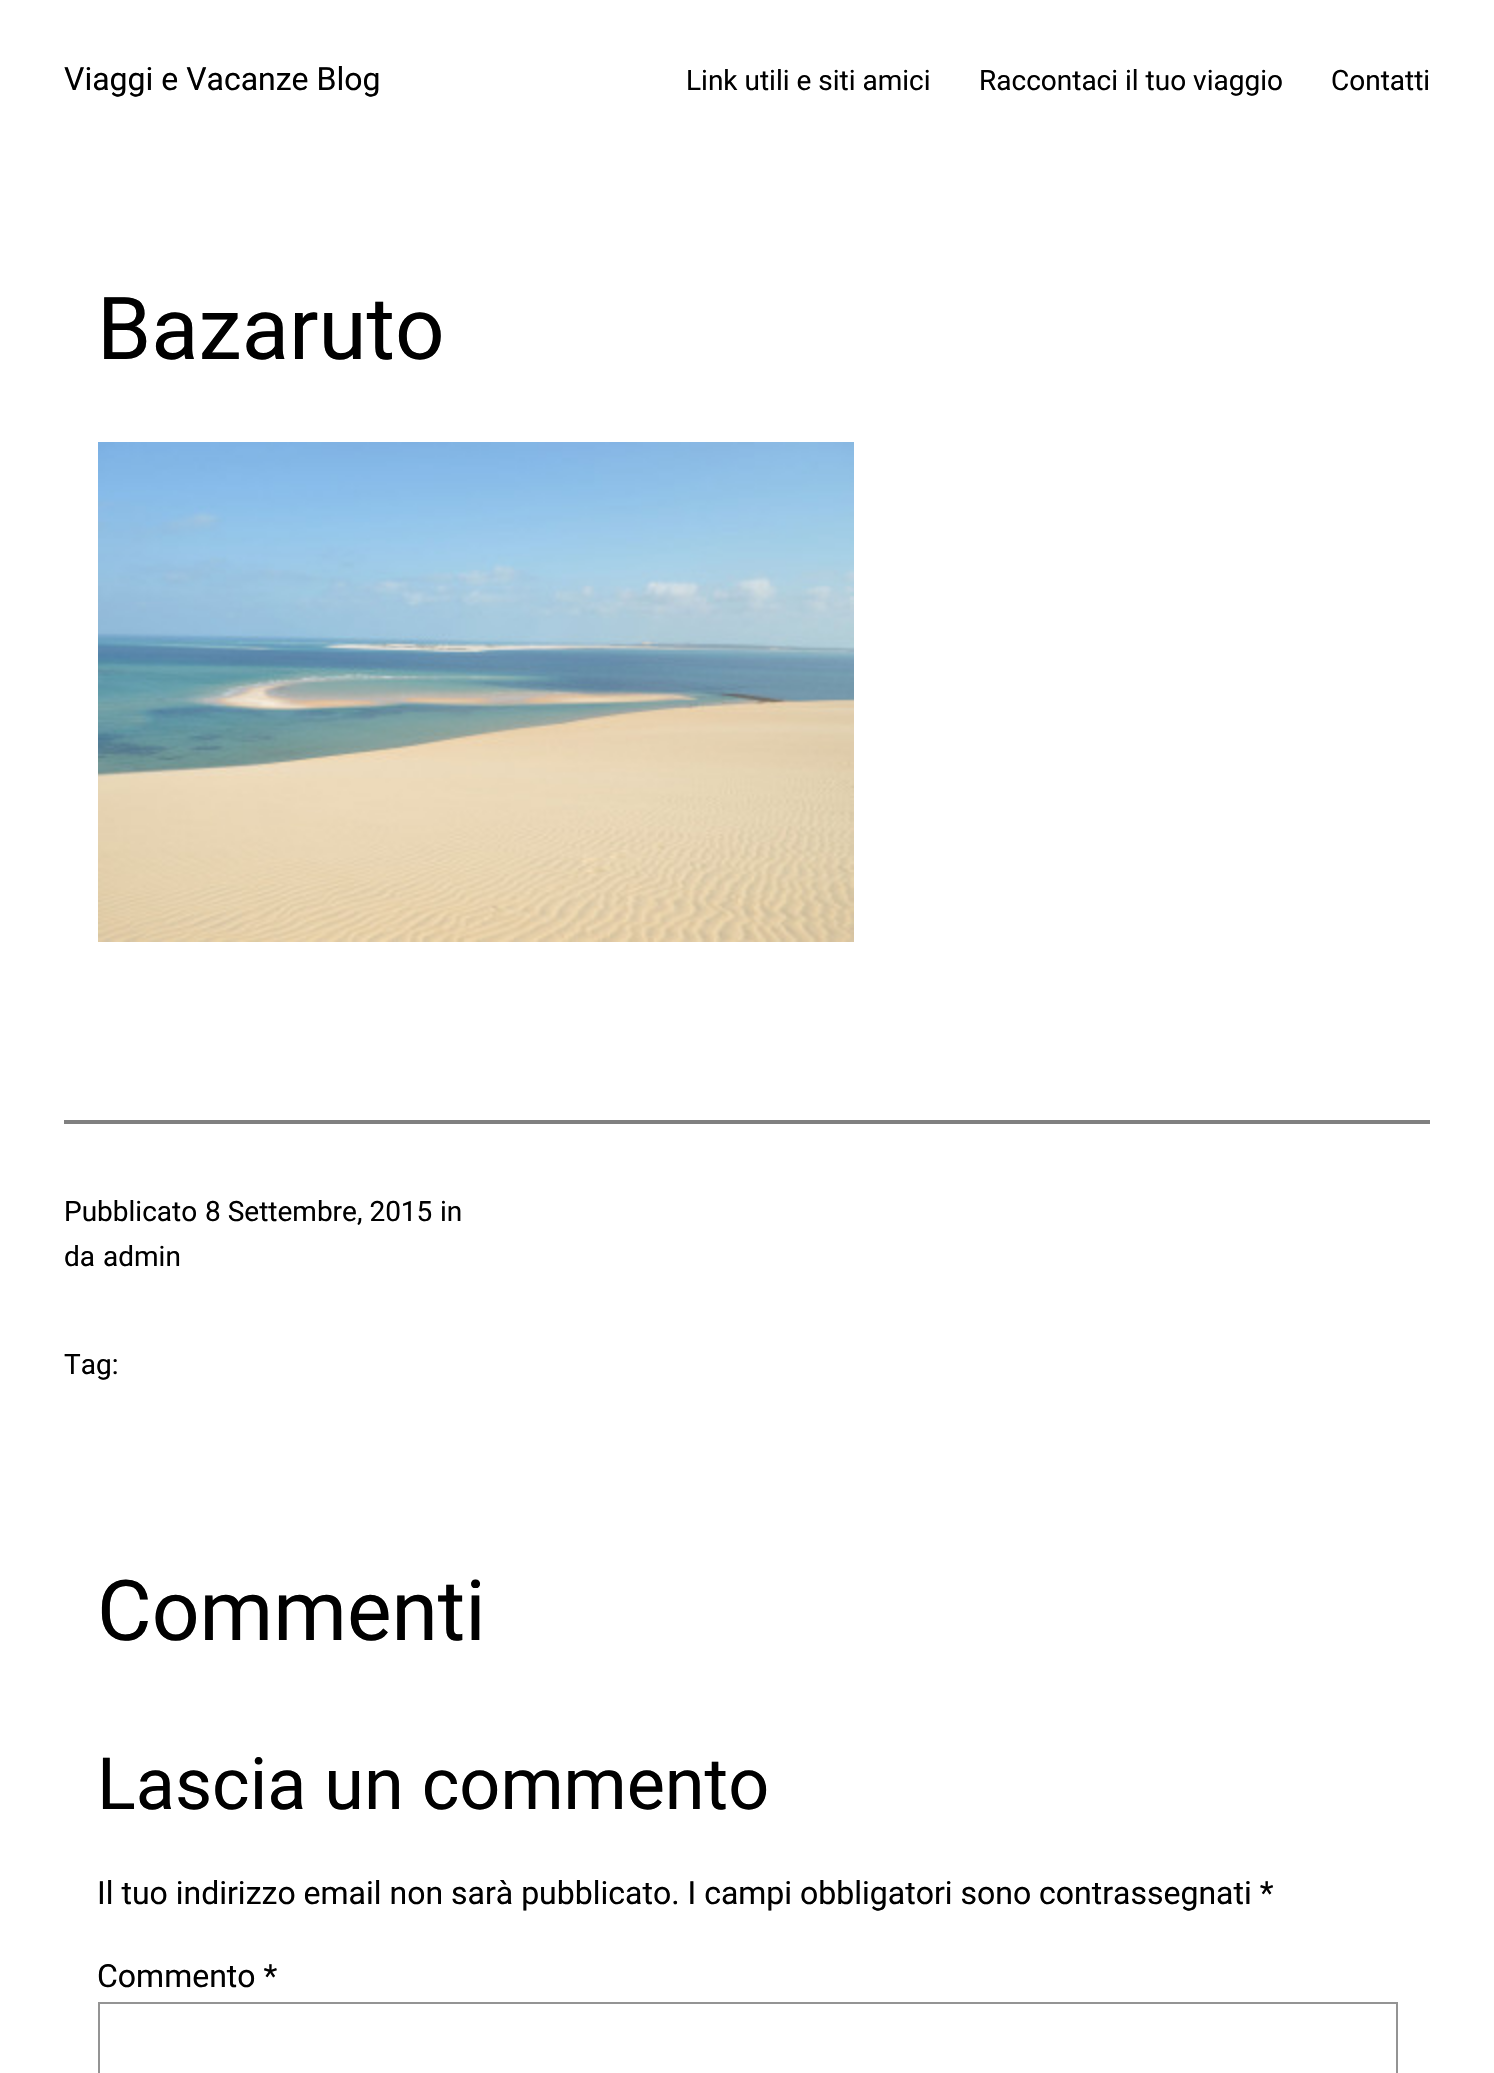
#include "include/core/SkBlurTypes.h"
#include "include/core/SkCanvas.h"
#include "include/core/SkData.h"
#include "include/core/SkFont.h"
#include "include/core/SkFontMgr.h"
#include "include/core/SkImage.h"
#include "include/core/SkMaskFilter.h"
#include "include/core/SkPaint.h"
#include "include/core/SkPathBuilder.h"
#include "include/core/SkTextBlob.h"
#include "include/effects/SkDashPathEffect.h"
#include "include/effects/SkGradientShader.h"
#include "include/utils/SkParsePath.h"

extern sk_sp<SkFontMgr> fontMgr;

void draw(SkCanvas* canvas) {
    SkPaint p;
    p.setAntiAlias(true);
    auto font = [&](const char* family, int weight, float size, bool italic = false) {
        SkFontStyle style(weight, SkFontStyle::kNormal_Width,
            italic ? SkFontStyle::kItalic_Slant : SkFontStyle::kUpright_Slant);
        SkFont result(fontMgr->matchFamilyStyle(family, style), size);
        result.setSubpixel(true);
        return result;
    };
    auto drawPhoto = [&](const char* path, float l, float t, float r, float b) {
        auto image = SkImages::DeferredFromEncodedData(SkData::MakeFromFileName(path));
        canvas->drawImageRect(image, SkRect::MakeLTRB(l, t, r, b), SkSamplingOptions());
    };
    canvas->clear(0xFFFFFFFF);
    auto font1 = font("Roboto", 400, 32);
    p.setColor(0xFF000000);
    canvas->drawString("Viaggi e Vacanze Blog", 64, 90, font1, p);
    auto font2 = font("Roboto", 400, 28);
    {
        const struct { const char* s; float x, y; } items[] = {
            {"Link utili e siti amici", 686, 90},
            {"Raccontaci il tuo viaggio", 979, 90},
            {"Contatti", 1331, 90},
        };
        for (auto [s, x, y] : items) {
            canvas->drawString(s, x, y, font2, p);
        }
    }
    auto font3 = font("Roboto", 400, 87);
    canvas->drawString("Bazaruto", 97, 359, font3, p);
    drawPhoto("media/1.png", 98, 442, 854, 942);
    p.setColor(0xFF808080);
    canvas->drawRect(SkRect::MakeLTRB(64, 1120, 1430, 1124), p);
    p.setColor(0xFF000000);
    {
        const struct { const char* s; float x, y; } items[] = {
            {"Pubblicato", 64, 1221},
            {"8 Settembre, 2015", 205, 1221},
            {"in", 440, 1221},
            {"da", 64, 1266},
            {"admin", 103, 1266},
            {"Tag:", 64, 1374},
        };
        for (auto [s, x, y] : items) {
            canvas->drawString(s, x, y, font2, p);
        }
    }
    auto font4 = font("Roboto", 400, 84);
    canvas->drawString("Commenti", 97, 1640, font4, p);
    auto font5 = font("Roboto", 400, 72);
    canvas->drawString("Lascia un commento", 97, 1809, font5, p);
    canvas->drawString("Il tuo indirizzo email non sarà pubblicato. I campi obbligatori sono contrassegnati *", 97, 1904, font1, p);
    canvas->drawString("Commento *", 97, 1987, font1, p);
    p.setStyle(SkPaint::kStroke_Style);
    p.setStrokeWidth(2);
    p.setColor(0xFF949494);
    canvas->drawRect(SkRect::MakeLTRB(99, 2003, 1397, 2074), p);
}
